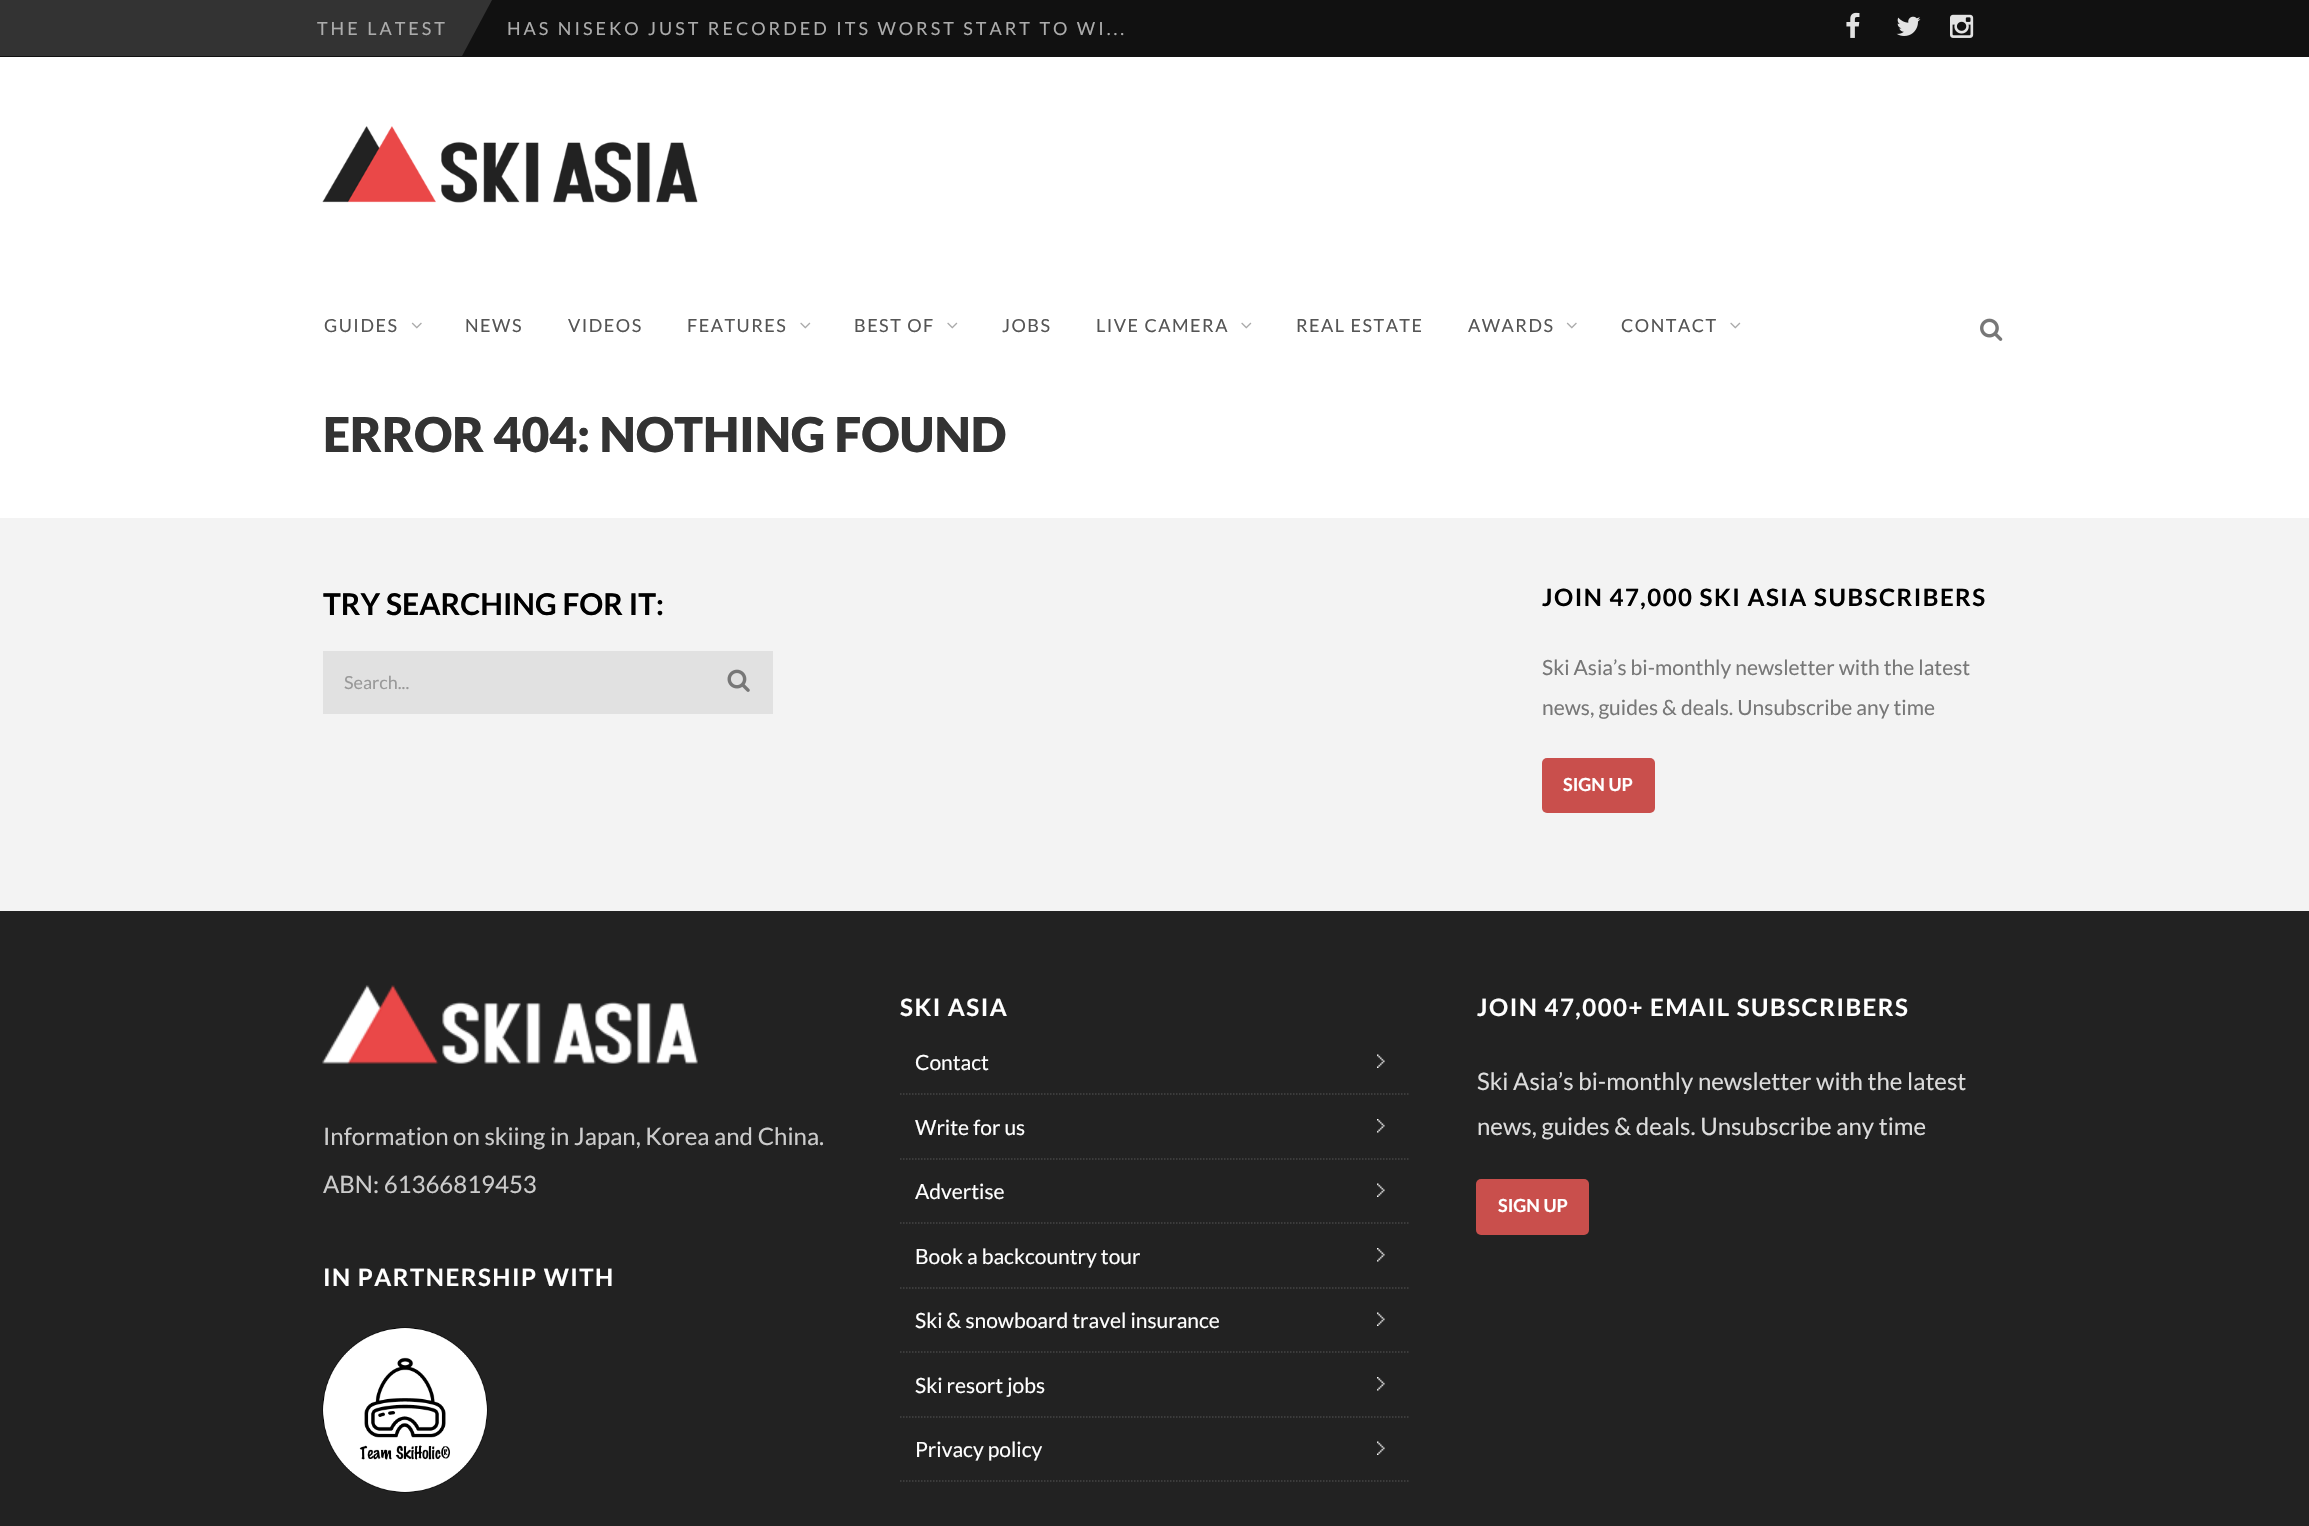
#include "include/core/SkBlurTypes.h"
#include "include/core/SkCanvas.h"
#include "include/core/SkData.h"
#include "include/core/SkFont.h"
#include "include/core/SkFontMgr.h"
#include "include/core/SkImage.h"
#include "include/core/SkMaskFilter.h"
#include "include/core/SkPaint.h"
#include "include/core/SkPathBuilder.h"
#include "include/core/SkTextBlob.h"
#include "include/effects/SkDashPathEffect.h"
#include "include/effects/SkGradientShader.h"
#include "include/utils/SkParsePath.h"

extern sk_sp<SkFontMgr> fontMgr;

void draw(SkCanvas* canvas) {
    SkPaint p;
    p.setAntiAlias(true);
    auto font = [&](const char* family, int weight, float size, bool italic = false) {
        SkFontStyle style(weight, SkFontStyle::kNormal_Width,
            italic ? SkFontStyle::kItalic_Slant : SkFontStyle::kUpright_Slant);
        SkFont result(fontMgr->matchFamilyStyle(family, style), size);
        result.setSubpixel(true);
        return result;
    };
    auto drawTracked = [&](const char* s, float x, float y, const SkFont& font, const SkPaint& ink, float letter, float word) {
        std::vector<SkGlyphID> glyphs(font.countText(s, strlen(s), SkTextEncoding::kUTF8));
        std::vector<float> xs(glyphs.size());
        font.textToGlyphs(s, strlen(s), SkTextEncoding::kUTF8, glyphs);
        font.getXPos(glyphs, xs, x);
        float extra = 0;
        for (size_t i = 0; i < glyphs.size(); i++) {
            xs[i] += extra;
            extra += letter + word * (glyphs[i] == font.unicharToGlyph(' '));
        }
        canvas->drawTextBlob(SkTextBlob::MakeFromPosHGlyphs(glyphs, xs, y, font), 0, 0, ink);
    };
    auto drawPhoto = [&](const char* path, float l, float t, float r, float b) {
        auto image = SkImages::DeferredFromEncodedData(SkData::MakeFromFileName(path));
        canvas->drawImageRect(image, SkRect::MakeLTRB(l, t, r, b), SkSamplingOptions());
    };
    canvas->clear(0xFFFFFFFF);
    p.setColor(0xFF111111);
    canvas->drawRect(SkRect::MakeLTRB(0, 0, 2309, 57), p);
    p.setColor(0xFF333333);
    canvas->drawRect(SkRect::MakeLTRB(0, 0, 462, 56), p);
    auto font1 = font("Lato", 400, 18);
    p.setColor(0xFFACACAC);
    drawTracked("THE LATEST", 317, 35, font1, p, 3, 0);
    p.setColor(0xFF333333);
    canvas->drawPath(SkPathBuilder().moveTo(462, 0).lineTo(492, 0).lineTo(462, 56).close().detach(), p);
    p.setColor(0xFFACACAC);
    drawTracked("HAS NISEKO JUST RECORDED ITS WORST START TO WI...", 507, 35, font1, p, 3, 0);
    drawPhoto("media/1.png", 1846, 12, 1860, 38);
    drawPhoto("media/2.png", 1896, 16, 1921, 36);
    drawPhoto("media/3.png", 1950, 14, 1974, 38);
    drawPhoto("media/4.png", 322, 126, 698, 203);
    p.setColor(0xFF555555);
    drawTracked("GUIDES", 324, 332, font1, p, 1.5f, 0);
    drawPhoto("media/5.png", 411, 322, 422, 329);
    {
        const struct { const char* s; float x, y; } items[] = {
            {"NEWS", 465, 332},
            {"VIDEOS", 568, 332},
            {"FEATURES", 687, 332},
        };
        for (auto [s, x, y] : items) {
            drawTracked(s, x, y, font1, p, 1.5f, 0);
        }
    }
    drawPhoto("media/6.png", 800, 322, 811, 329);
    drawTracked("BEST OF", 854, 332, font1, p, 1.5f, 0);
    drawPhoto("media/6.png", 947, 322, 958, 329);
    drawTracked("JOBS", 1002, 332, font1, p, 1.5f, 0);
    drawTracked("LIVE CAMERA", 1096, 332, font1, p, 1.5f, 0);
    drawPhoto("media/6.png", 1241, 322, 1252, 329);
    drawTracked("REAL ESTATE", 1296, 332, font1, p, 1.5f, 0);
    drawTracked("AWARDS", 1468, 332, font1, p, 1.5f, 0);
    drawPhoto("media/5.png", 1566, 322, 1577, 329);
    drawTracked("CONTACT", 1621, 332, font1, p, 1.5f, 0);
    drawPhoto("media/6.png", 1730, 322, 1741, 329);
    drawPhoto("media/7.png", 1980, 318, 2003, 341);
    p.setColor(0xFFF3F3F3);
    canvas->drawRect(SkRect::MakeLTRB(0, 518, 2309, 911), p);
    auto font2 = font("Lato", 900, 48);
    p.setColor(0xFF333333);
    canvas->drawString("ERROR 404: NOTHING FOUND", 323, 452, font2, p);
    auto font3 = font("Lato", 700, 30);
    p.setColor(0xFF000000);
    canvas->drawString("TRY SEARCHING FOR IT:", 323, 615, font3, p);
    p.setColor(0xFFE1E1E1);
    canvas->drawRect(SkRect::MakeLTRB(323, 651, 773, 714), p);
    p.setColor(0xFF999999);
    canvas->drawString("Search...", 344, 689, font1, p);
    drawPhoto("media/8.png", 727, 669, 750, 692);
    auto font4 = font("Lato", 700, 24);
    p.setColor(0xFF000000);
    drawTracked("JOIN 47,000 SKI ASIA SUBSCRIBERS", 1542, 606, font4, p, 1.5f, 0);
    auto font5 = font("Lato", 400, 21);
    p.setColor(0xFF777777);
    canvas->drawString("Ski Asia’s bi-monthly newsletter with the latest", 1542, 675, font5, p);
    canvas->drawString("news, guides & deals. Unsubscribe any time", 1542, 715, font5, p);
    p.setColor(0xFFC94F4C);
    canvas->drawRoundRect(SkRect::MakeLTRB(1542, 758, 1655, 813), 5, 5, p);
    auto font6 = font("Lato", 700, 18);
    p.setColor(0xFFFFFFFF);
    canvas->drawString("SIGN UP", 1563, 791, font6, p);
    p.setColor(0xFF222222);
    canvas->drawRect(SkRect::MakeLTRB(0, 911, 2309, 1526), p);
    drawPhoto("media/9.png", 322, 985, 698, 1064);
    auto font7 = font("Lato", 400, 24);
    p.setColor(0xFFCCCCCC);
    canvas->drawString("Information on skiing in Japan, Korea and China.", 323, 1145, font7, p);
    canvas->drawString("ABN: 61366819453", 323, 1193, font7, p);
    p.setColor(0xFFFFFFFF);
    drawTracked("IN PARTNERSHIP WITH", 323, 1286, font4, p, 1.5f, 0);
    drawPhoto("media/10.png", 322, 1327, 488, 1493);
    drawTracked("SKI ASIA", 900, 1016, font4, p, 1.5f, 0);
    drawPhoto("media/11.png", 1377, 1054, 1385, 1068);
    p.setStyle(SkPaint::kStroke_Style);
    p.setStrokeWidth(1.5f);
    p.setColor(0xFF444444);
    p.setPathEffect(SkDashPathEffect::Make({{1.5f, 1.5f}}, 0));
    canvas->drawPath(SkPathBuilder().moveTo(900, 1094).lineTo(1410, 1094).detach(), p);
    p.setPathEffect(nullptr);
    p.setStyle(SkPaint::kFill_Style);
    p.setColor(0xFFFFFFFF);
    canvas->drawString("Contact", 915, 1070, font5, p);
    drawPhoto("media/12.png", 1377, 1119, 1385, 1133);
    p.setStyle(SkPaint::kStroke_Style);
    p.setColor(0xFF444444);
    p.setPathEffect(SkDashPathEffect::Make({{1.5f, 1.5f}}, 0));
    canvas->drawPath(SkPathBuilder().moveTo(900, 1159).lineTo(1410, 1159).detach(), p);
    p.setPathEffect(nullptr);
    p.setStyle(SkPaint::kFill_Style);
    p.setColor(0xFFFFFFFF);
    canvas->drawString("Write for us", 915, 1135, font5, p);
    drawPhoto("media/11.png", 1377, 1183, 1385, 1197);
    p.setStyle(SkPaint::kStroke_Style);
    p.setColor(0xFF444444);
    p.setPathEffect(SkDashPathEffect::Make({{1.5f, 1.5f}}, 0));
    canvas->drawPath(SkPathBuilder().moveTo(900, 1223).lineTo(1410, 1223).detach(), p);
    p.setPathEffect(nullptr);
    p.setStyle(SkPaint::kFill_Style);
    p.setColor(0xFFFFFFFF);
    canvas->drawString("Advertise", 915, 1199, font5, p);
    drawPhoto("media/12.png", 1377, 1248, 1385, 1262);
    p.setStyle(SkPaint::kStroke_Style);
    p.setColor(0xFF444444);
    p.setPathEffect(SkDashPathEffect::Make({{1.5f, 1.5f}}, 0));
    canvas->drawPath(SkPathBuilder().moveTo(900, 1288).lineTo(1410, 1288).detach(), p);
    p.setPathEffect(nullptr);
    p.setStyle(SkPaint::kFill_Style);
    p.setColor(0xFFFFFFFF);
    canvas->drawString("Book a backcountry tour", 915, 1264, font5, p);
    drawPhoto("media/11.png", 1377, 1312, 1385, 1326);
    p.setStyle(SkPaint::kStroke_Style);
    p.setColor(0xFF444444);
    p.setPathEffect(SkDashPathEffect::Make({{1.5f, 1.5f}}, 0));
    canvas->drawPath(SkPathBuilder().moveTo(900, 1352).lineTo(1410, 1352).detach(), p);
    p.setPathEffect(nullptr);
    p.setStyle(SkPaint::kFill_Style);
    p.setColor(0xFFFFFFFF);
    canvas->drawString("Ski & snowboard travel insurance", 915, 1328, font5, p);
    drawPhoto("media/12.png", 1377, 1377, 1385, 1391);
    p.setStyle(SkPaint::kStroke_Style);
    p.setColor(0xFF444444);
    p.setPathEffect(SkDashPathEffect::Make({{1.5f, 1.5f}}, 0));
    canvas->drawPath(SkPathBuilder().moveTo(900, 1417).lineTo(1410, 1417).detach(), p);
    p.setPathEffect(nullptr);
    p.setStyle(SkPaint::kFill_Style);
    p.setColor(0xFFFFFFFF);
    canvas->drawString("Ski resort jobs", 915, 1393, font5, p);
    drawPhoto("media/11.png", 1377, 1441, 1385, 1455);
    p.setStyle(SkPaint::kStroke_Style);
    p.setColor(0xFF444444);
    p.setPathEffect(SkDashPathEffect::Make({{1.5f, 1.5f}}, 0));
    canvas->drawPath(SkPathBuilder().moveTo(900, 1481).lineTo(1410, 1481).detach(), p);
    p.setPathEffect(nullptr);
    p.setStyle(SkPaint::kFill_Style);
    p.setColor(0xFFFFFFFF);
    canvas->drawString("Privacy policy", 915, 1457, font5, p);
    drawTracked("JOIN 47,000+ EMAIL SUBSCRIBERS", 1477, 1016, font4, p, 1.5f, 0);
    p.setColor(0xFFDCDCDC);
    canvas->drawString("Ski Asia’s bi-monthly newsletter with the latest", 1477, 1090, font7, p);
    canvas->drawString("news, guides & deals. Unsubscribe any time", 1477, 1135, font7, p);
    p.setColor(0xFFC94F4C);
    canvas->drawRoundRect(SkRect::MakeLTRB(1476, 1179, 1589, 1235), 5, 5, p);
    p.setColor(0xFFFFFFFF);
    canvas->drawString("SIGN UP", 1498, 1212, font6, p);
}
